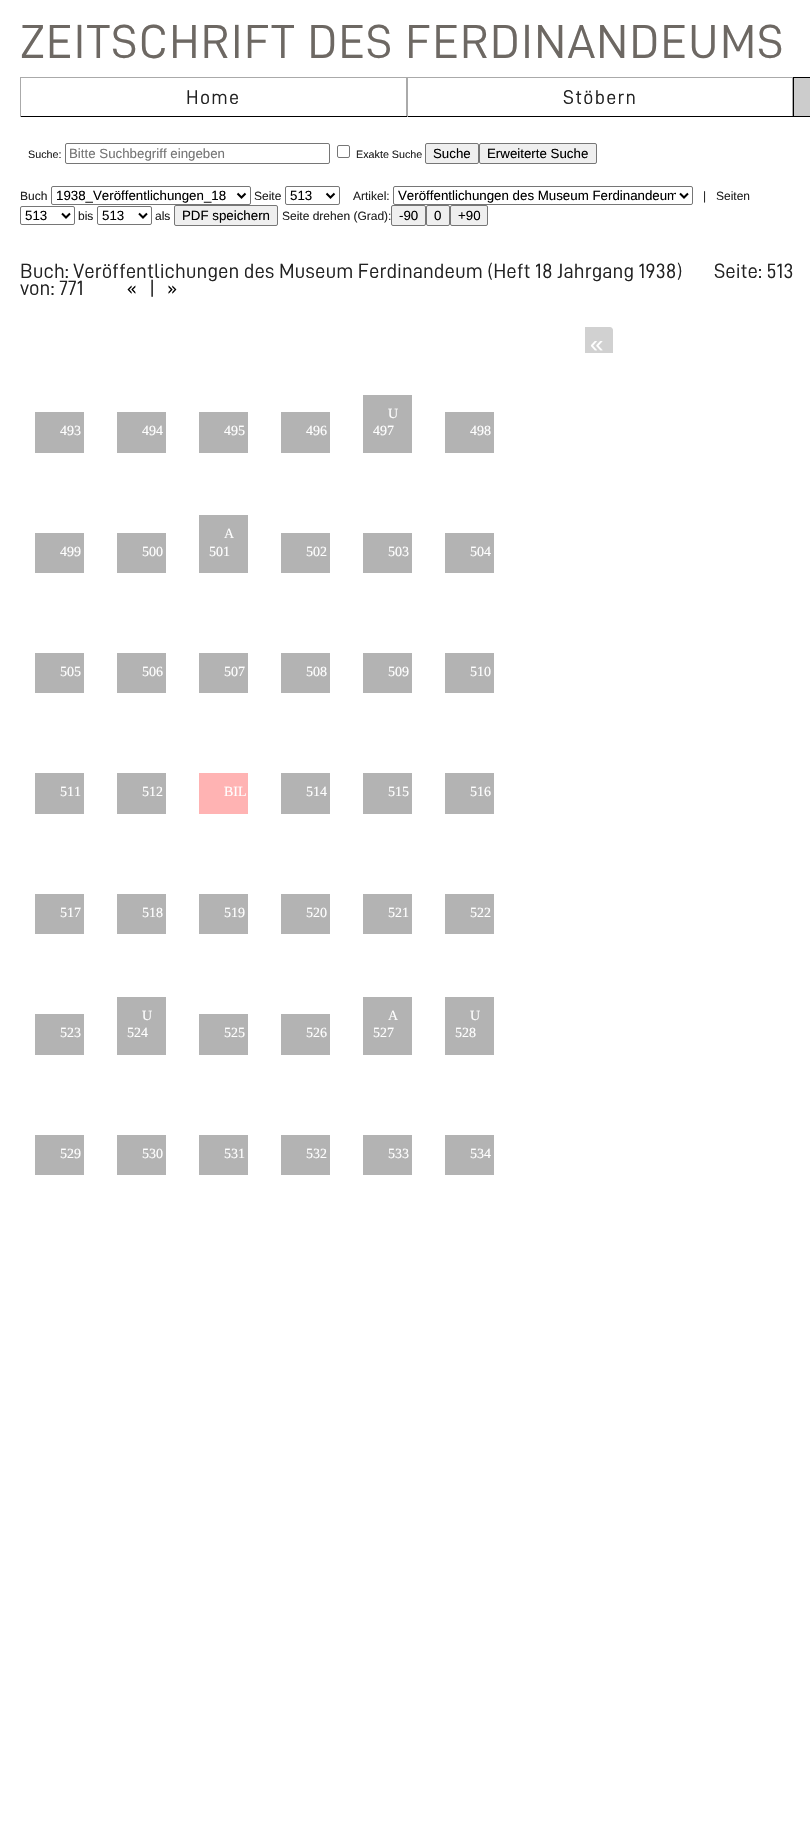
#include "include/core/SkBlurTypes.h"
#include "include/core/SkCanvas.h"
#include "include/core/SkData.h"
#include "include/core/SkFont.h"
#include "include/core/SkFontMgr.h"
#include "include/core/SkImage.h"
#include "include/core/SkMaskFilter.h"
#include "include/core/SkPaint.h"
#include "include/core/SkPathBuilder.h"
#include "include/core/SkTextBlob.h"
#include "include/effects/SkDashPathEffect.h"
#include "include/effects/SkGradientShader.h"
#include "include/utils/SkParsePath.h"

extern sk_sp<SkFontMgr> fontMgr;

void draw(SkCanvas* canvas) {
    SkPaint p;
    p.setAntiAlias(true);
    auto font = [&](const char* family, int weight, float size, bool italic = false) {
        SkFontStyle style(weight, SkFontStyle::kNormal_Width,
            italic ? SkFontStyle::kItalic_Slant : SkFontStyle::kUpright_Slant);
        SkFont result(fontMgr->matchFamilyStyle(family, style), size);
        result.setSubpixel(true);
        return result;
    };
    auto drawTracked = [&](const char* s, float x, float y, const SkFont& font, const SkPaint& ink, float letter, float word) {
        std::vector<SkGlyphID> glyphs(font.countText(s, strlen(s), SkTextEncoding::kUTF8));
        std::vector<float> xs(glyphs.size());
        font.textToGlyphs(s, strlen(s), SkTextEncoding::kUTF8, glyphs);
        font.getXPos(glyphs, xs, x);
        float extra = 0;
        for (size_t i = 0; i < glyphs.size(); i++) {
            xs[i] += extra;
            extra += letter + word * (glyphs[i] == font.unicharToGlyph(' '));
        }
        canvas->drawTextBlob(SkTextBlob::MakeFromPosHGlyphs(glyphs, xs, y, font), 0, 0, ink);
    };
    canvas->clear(0xFFFFFFFF);
    auto font1 = font("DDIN", 400, 48);
    p.setColor(0xFF6D6863);
    drawTracked("ZEITSCHRIFT DES FERDINANDEUMS", 20, 58, font1, p, 1.3f, 0);
    {
        const struct { float l, t, r, b; SkColor color; } items[] = {
            {20, 77, 793, 78, 0xFFAAAAAA},
            {406, 77, 407, 117, 0xFFAAAAAA},
            {20, 116, 407, 117, 0xFF000000},
            {20, 77, 21, 117, 0xFFAAAAAA},
        };
        for (auto [l, t, r, b, color] : items) {
            p.setColor(color);
            canvas->drawRect(SkRect::MakeLTRB(l, t, r, b), p);
        }
    }
    auto font2 = font("DDIN", 400, 20);
    p.setColor(0xFF222222);
    drawTracked("Home", 186, 104, font2, p, 1.3f, 0);
    {
        const struct { float l, t, r, b; SkColor color; } items[] = {
            {792, 77, 793, 117, 0xFFAAAAAA},
            {407, 116, 793, 117, 0xFF000000},
            {407, 77, 408, 117, 0xFFAAAAAA},
        };
        for (auto [l, t, r, b, color] : items) {
            p.setColor(color);
            canvas->drawRect(SkRect::MakeLTRB(l, t, r, b), p);
        }
    }
    p.setColor(0xFF222222);
    drawTracked("Stöbern", 563, 104, font2, p, 1.3f, 0);
    p.setColor(0xFFCCCCCC);
    canvas->drawRect(SkRect::MakeLTRB(793.5f, 77.5f, 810.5f, 116.5f), p);
    p.setStyle(SkPaint::kStroke_Style);
    p.setStrokeWidth(1);
    p.setColor(0xFF000000);
    canvas->drawRect(SkRect::MakeLTRB(793.5f, 77.5f, 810.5f, 116.5f), p);
    auto font3 = font("Liberation Sans", 400, 10.75f);
    p.setStyle(SkPaint::kFill_Style);
    p.setColor(0xFF222222);
    canvas->drawString("Suche:", 28, 158, font3, p);
    p.setStyle(SkPaint::kStroke_Style);
    p.setColor(0xFF767676);
    canvas->drawRoundRect(SkRect::MakeLTRB(65.5f, 143.5f, 329.5f, 163.5f), 1.5f, 1.5f, p);
    auto font4 = font("Liberation Sans", 400, 13.3f);
    p.setStyle(SkPaint::kFill_Style);
    p.setColor(0xFF757575);
    canvas->drawString("Bitte Suchbegriff eingeben", 69, 158, font4, p);
    p.setStyle(SkPaint::kStroke_Style);
    p.setColor(0xFF767676);
    canvas->drawRoundRect(SkRect::MakeLTRB(337.5f, 145.5f, 349.5f, 157.5f), 1.5f, 1.5f, p);
    p.setStyle(SkPaint::kFill_Style);
    p.setColor(0xFF222222);
    canvas->drawString("Exakte Suche", 356, 158, font3, p);
    p.setColor(0xFFEFEFEF);
    canvas->drawRoundRect(SkRect::MakeLTRB(425.5f, 143.5f, 478.5f, 163.5f), 1.5f, 1.5f, p);
    p.setStyle(SkPaint::kStroke_Style);
    p.setColor(0xFF767676);
    canvas->drawRoundRect(SkRect::MakeLTRB(425.5f, 143.5f, 478.5f, 163.5f), 1.5f, 1.5f, p);
    p.setStyle(SkPaint::kFill_Style);
    p.setColor(0xFF000000);
    canvas->drawString("Suche", 433, 158, font4, p);
    p.setColor(0xFFEFEFEF);
    canvas->drawRoundRect(SkRect::MakeLTRB(479.5f, 143.5f, 596.5f, 163.5f), 1.5f, 1.5f, p);
    p.setStyle(SkPaint::kStroke_Style);
    p.setColor(0xFF767676);
    canvas->drawRoundRect(SkRect::MakeLTRB(479.5f, 143.5f, 596.5f, 163.5f), 1.5f, 1.5f, p);
    p.setStyle(SkPaint::kFill_Style);
    p.setColor(0xFF000000);
    canvas->drawString("Erweiterte Suche", 487, 158, font4, p);
    auto font5 = font("Liberation Sans", 400, 12);
    p.setColor(0xFF222222);
    canvas->drawString("Buch", 20, 200, font5, p);
    p.setStyle(SkPaint::kStroke_Style);
    p.setColor(0xFF767676);
    canvas->drawRoundRect(SkRect::MakeLTRB(51.5f, 186.5f, 250.5f, 204.5f), 1.5f, 1.5f, p);
    p.setStrokeWidth(2);
    p.setColor(0xFF000000);
    canvas->drawPath(SkPathBuilder().moveTo(237.5f, 193.5f).lineTo(241.5f, 197.5f).lineTo(245.5f, 193.5f).detach(), p);
    p.setStyle(SkPaint::kFill_Style);
    canvas->drawString("1938_Veröffentlichungen_18", 56, 200, font4, p);
    p.setColor(0xFF222222);
    canvas->drawString("Seite", 254, 200, font5, p);
    p.setStyle(SkPaint::kStroke_Style);
    p.setStrokeWidth(1);
    p.setColor(0xFF767676);
    canvas->drawRoundRect(SkRect::MakeLTRB(285.5f, 186.5f, 339.5f, 204.5f), 1.5f, 1.5f, p);
    p.setStrokeWidth(2);
    p.setColor(0xFF000000);
    canvas->drawPath(SkPathBuilder().moveTo(326.5f, 193.5f).lineTo(330.5f, 197.5f).lineTo(334.5f, 193.5f).detach(), p);
    p.setStyle(SkPaint::kFill_Style);
    canvas->drawString("513", 290, 200, font4, p);
    p.setColor(0xFF222222);
    canvas->drawString("Artikel:", 353, 200, font5, p);
    p.setStyle(SkPaint::kStroke_Style);
    p.setStrokeWidth(1);
    p.setColor(0xFF767676);
    canvas->drawRoundRect(SkRect::MakeLTRB(393.5f, 186.5f, 692.5f, 204.5f), 1.5f, 1.5f, p);
    p.setStrokeWidth(2);
    p.setColor(0xFF000000);
    canvas->drawPath(SkPathBuilder().moveTo(680, 193.5f).lineTo(684, 197.5f).lineTo(688, 193.5f).detach(), p);
    canvas->save();
    canvas->clipRect(SkRect::MakeLTRB(398, 187, 676, 204));
    p.setStyle(SkPaint::kFill_Style);
    canvas->drawString("Veröffentlichungen des Museum Ferdinandeum", 398, 200, font4, p);
    canvas->restore();
    p.setColor(0xFF222222);
    canvas->drawString("Seiten", 716, 200, font5, p);
    p.setStyle(SkPaint::kStroke_Style);
    p.setStrokeWidth(1);
    p.setColor(0xFF767676);
    canvas->drawRoundRect(SkRect::MakeLTRB(20.5f, 206.5f, 74.5f, 224.5f), 1.5f, 1.5f, p);
    p.setStrokeWidth(2);
    p.setColor(0xFF000000);
    canvas->drawPath(SkPathBuilder().moveTo(62, 213.5f).lineTo(66, 217.5f).lineTo(70, 213.5f).detach(), p);
    p.setStyle(SkPaint::kFill_Style);
    canvas->drawString("513", 25, 220, font4, p);
    p.setColor(0xFF222222);
    canvas->drawString("bis", 78, 220, font5, p);
    p.setStyle(SkPaint::kStroke_Style);
    p.setStrokeWidth(1);
    p.setColor(0xFF767676);
    canvas->drawRoundRect(SkRect::MakeLTRB(97.5f, 206.5f, 151.5f, 224.5f), 1.5f, 1.5f, p);
    p.setStrokeWidth(2);
    p.setColor(0xFF000000);
    canvas->drawPath(SkPathBuilder().moveTo(139, 213.5f).lineTo(143, 217.5f).lineTo(147, 213.5f).detach(), p);
    p.setStyle(SkPaint::kFill_Style);
    canvas->drawString("513", 102, 220, font4, p);
    p.setColor(0xFF222222);
    canvas->drawString("als", 155, 220, font5, p);
    p.setColor(0xFFEFEFEF);
    canvas->drawRoundRect(SkRect::MakeLTRB(174.5f, 205.5f, 277.5f, 225.5f), 1.5f, 1.5f, p);
    p.setStyle(SkPaint::kStroke_Style);
    p.setStrokeWidth(1);
    p.setColor(0xFF767676);
    canvas->drawRoundRect(SkRect::MakeLTRB(174.5f, 205.5f, 277.5f, 225.5f), 1.5f, 1.5f, p);
    p.setStyle(SkPaint::kFill_Style);
    p.setColor(0xFF000000);
    canvas->drawString("PDF speichern", 182, 220, font4, p);
    p.setColor(0xFF222222);
    canvas->drawString("|", 703, 200, font5, p);
    canvas->drawString("Seite drehen (Grad):", 282, 220, font5, p);
    p.setColor(0xFFEFEFEF);
    canvas->drawRoundRect(SkRect::MakeLTRB(391.5f, 205.5f, 425.5f, 225.5f), 1.5f, 1.5f, p);
    p.setStyle(SkPaint::kStroke_Style);
    p.setColor(0xFF767676);
    canvas->drawRoundRect(SkRect::MakeLTRB(391.5f, 205.5f, 425.5f, 225.5f), 1.5f, 1.5f, p);
    p.setStyle(SkPaint::kFill_Style);
    p.setColor(0xFF000000);
    canvas->drawString("-90", 399, 220, font4, p);
    p.setColor(0xFFEFEFEF);
    canvas->drawRoundRect(SkRect::MakeLTRB(426.5f, 205.5f, 449.5f, 225.5f), 1.5f, 1.5f, p);
    p.setStyle(SkPaint::kStroke_Style);
    p.setColor(0xFF767676);
    canvas->drawRoundRect(SkRect::MakeLTRB(426.5f, 205.5f, 449.5f, 225.5f), 1.5f, 1.5f, p);
    p.setStyle(SkPaint::kFill_Style);
    p.setColor(0xFF000000);
    canvas->drawString("0", 434, 220, font4, p);
    p.setColor(0xFFEFEFEF);
    canvas->drawRoundRect(SkRect::MakeLTRB(450.5f, 205.5f, 487.5f, 225.5f), 1.5f, 1.5f, p);
    p.setStyle(SkPaint::kStroke_Style);
    p.setColor(0xFF767676);
    canvas->drawRoundRect(SkRect::MakeLTRB(450.5f, 205.5f, 487.5f, 225.5f), 1.5f, 1.5f, p);
    p.setStyle(SkPaint::kFill_Style);
    p.setColor(0xFF000000);
    canvas->drawString("+90", 458, 220, font4, p);
    auto font6 = font("DDIN", 400, 20.75f);
    p.setColor(0xFF222222);
    canvas->drawString("Buch: Veröffentlichungen des Museum Ferdinandeum (Heft 18 Jahrgang 1938)       Seite: 513", 20, 278, font6, p);
    canvas->drawString("von: 771", 20, 295, font6, p);
    p.setColor(0xFF000000);
    canvas->drawString("«", 127, 295, font6, p);
    p.setColor(0xFF222222);
    canvas->drawString("|", 149, 295, font6, p);
    p.setColor(0xFF000000);
    canvas->drawString("»", 167, 295, font6, p);
    p.setColor(0xFFD1D1D1);
    canvas->drawPath(SkPathBuilder().moveTo(585, 327).lineTo(610, 327).cubicTo(611.5f, 327, 613, 328.5f, 613, 330).lineTo(613, 353).lineTo(585, 353).close().detach(), p);
    auto font7 = font("Liberation Sans", 400, 24);
    p.setColor(0xFFFFFFFF);
    canvas->drawString("«", 590, 352, font7, p);
    p.setColor(0xFFB3B3B3);
    canvas->drawRect(SkRect::MakeLTRB(35, 412, 84, 453), p);
    auto font8 = font("Liberation Serif", 400, 14);
    p.setColor(0xFFFFFFFF);
    canvas->drawString("493", 60, 435, font8, p);
    p.setColor(0xFFB3B3B3);
    canvas->drawRect(SkRect::MakeLTRB(117, 412, 166, 453), p);
    p.setColor(0xFFFFFFFF);
    canvas->drawString("494", 142, 435, font8, p);
    p.setColor(0xFFB3B3B3);
    canvas->drawRect(SkRect::MakeLTRB(199, 412, 248, 453), p);
    p.setColor(0xFFFFFFFF);
    canvas->drawString("495", 224, 435, font8, p);
    p.setColor(0xFFB3B3B3);
    canvas->drawRect(SkRect::MakeLTRB(281, 412, 330, 453), p);
    p.setColor(0xFFFFFFFF);
    canvas->drawString("496", 306, 435, font8, p);
    p.setColor(0xFFB3B3B3);
    canvas->drawRect(SkRect::MakeLTRB(363, 395, 412, 453), p);
    p.setColor(0xFFFFFFFF);
    canvas->drawString("U", 388, 418, font8, p);
    canvas->drawString("497", 373, 435, font8, p);
    p.setColor(0xFFB3B3B3);
    canvas->drawRect(SkRect::MakeLTRB(445, 412, 494, 453), p);
    p.setColor(0xFFFFFFFF);
    canvas->drawString("498", 470, 435, font8, p);
    p.setColor(0xFFB3B3B3);
    canvas->drawRect(SkRect::MakeLTRB(35, 533, 84, 573), p);
    p.setColor(0xFFFFFFFF);
    canvas->drawString("499", 60, 556, font8, p);
    p.setColor(0xFFB3B3B3);
    canvas->drawRect(SkRect::MakeLTRB(117, 533, 166, 573), p);
    p.setColor(0xFFFFFFFF);
    canvas->drawString("500", 142, 556, font8, p);
    p.setColor(0xFFB3B3B3);
    canvas->drawRect(SkRect::MakeLTRB(199, 515, 248, 573), p);
    p.setColor(0xFFFFFFFF);
    canvas->drawString("A", 224, 538, font8, p);
    canvas->drawString("501", 209, 556, font8, p);
    p.setColor(0xFFB3B3B3);
    canvas->drawRect(SkRect::MakeLTRB(281, 533, 330, 573), p);
    p.setColor(0xFFFFFFFF);
    canvas->drawString("502", 306, 556, font8, p);
    p.setColor(0xFFB3B3B3);
    canvas->drawRect(SkRect::MakeLTRB(363, 533, 412, 573), p);
    p.setColor(0xFFFFFFFF);
    canvas->drawString("503", 388, 556, font8, p);
    p.setColor(0xFFB3B3B3);
    canvas->drawRect(SkRect::MakeLTRB(445, 533, 494, 573), p);
    p.setColor(0xFFFFFFFF);
    canvas->drawString("504", 470, 556, font8, p);
    p.setColor(0xFFB3B3B3);
    canvas->drawRect(SkRect::MakeLTRB(35, 653, 84, 693), p);
    p.setColor(0xFFFFFFFF);
    canvas->drawString("505", 60, 676, font8, p);
    p.setColor(0xFFB3B3B3);
    canvas->drawRect(SkRect::MakeLTRB(117, 653, 166, 693), p);
    p.setColor(0xFFFFFFFF);
    canvas->drawString("506", 142, 676, font8, p);
    p.setColor(0xFFB3B3B3);
    canvas->drawRect(SkRect::MakeLTRB(199, 653, 248, 693), p);
    p.setColor(0xFFFFFFFF);
    canvas->drawString("507", 224, 676, font8, p);
    p.setColor(0xFFB3B3B3);
    canvas->drawRect(SkRect::MakeLTRB(281, 653, 330, 693), p);
    p.setColor(0xFFFFFFFF);
    canvas->drawString("508", 306, 676, font8, p);
    p.setColor(0xFFB3B3B3);
    canvas->drawRect(SkRect::MakeLTRB(363, 653, 412, 693), p);
    p.setColor(0xFFFFFFFF);
    canvas->drawString("509", 388, 676, font8, p);
    p.setColor(0xFFB3B3B3);
    canvas->drawRect(SkRect::MakeLTRB(445, 653, 494, 693), p);
    p.setColor(0xFFFFFFFF);
    canvas->drawString("510", 470, 676, font8, p);
    p.setColor(0xFFB3B3B3);
    canvas->drawRect(SkRect::MakeLTRB(35, 773, 84, 814), p);
    p.setColor(0xFFFFFFFF);
    canvas->drawString("511", 60, 796, font8, p);
    p.setColor(0xFFB3B3B3);
    canvas->drawRect(SkRect::MakeLTRB(117, 773, 166, 814), p);
    p.setColor(0xFFFFFFFF);
    canvas->drawString("512", 142, 796, font8, p);
    p.setColor(0xFFFFB3B3);
    canvas->drawRect(SkRect::MakeLTRB(199, 773, 248, 814), p);
    p.setColor(0xFFFFFFFF);
    canvas->drawString("BIL", 224, 796, font8, p);
    p.setColor(0xFFB3B3B3);
    canvas->drawRect(SkRect::MakeLTRB(281, 773, 330, 814), p);
    p.setColor(0xFFFFFFFF);
    canvas->drawString("514", 306, 796, font8, p);
    p.setColor(0xFFB3B3B3);
    canvas->drawRect(SkRect::MakeLTRB(363, 773, 412, 814), p);
    p.setColor(0xFFFFFFFF);
    canvas->drawString("515", 388, 796, font8, p);
    p.setColor(0xFFB3B3B3);
    canvas->drawRect(SkRect::MakeLTRB(445, 773, 494, 814), p);
    p.setColor(0xFFFFFFFF);
    canvas->drawString("516", 470, 796, font8, p);
    p.setColor(0xFFB3B3B3);
    canvas->drawRect(SkRect::MakeLTRB(35, 894, 84, 934), p);
    p.setColor(0xFFFFFFFF);
    canvas->drawString("517", 60, 917, font8, p);
    p.setColor(0xFFB3B3B3);
    canvas->drawRect(SkRect::MakeLTRB(117, 894, 166, 934), p);
    p.setColor(0xFFFFFFFF);
    canvas->drawString("518", 142, 917, font8, p);
    p.setColor(0xFFB3B3B3);
    canvas->drawRect(SkRect::MakeLTRB(199, 894, 248, 934), p);
    p.setColor(0xFFFFFFFF);
    canvas->drawString("519", 224, 917, font8, p);
    p.setColor(0xFFB3B3B3);
    canvas->drawRect(SkRect::MakeLTRB(281, 894, 330, 934), p);
    p.setColor(0xFFFFFFFF);
    canvas->drawString("520", 306, 917, font8, p);
    p.setColor(0xFFB3B3B3);
    canvas->drawRect(SkRect::MakeLTRB(363, 894, 412, 934), p);
    p.setColor(0xFFFFFFFF);
    canvas->drawString("521", 388, 917, font8, p);
    p.setColor(0xFFB3B3B3);
    canvas->drawRect(SkRect::MakeLTRB(445, 894, 494, 934), p);
    p.setColor(0xFFFFFFFF);
    canvas->drawString("522", 470, 917, font8, p);
    p.setColor(0xFFB3B3B3);
    canvas->drawRect(SkRect::MakeLTRB(35, 1014, 84, 1055), p);
    p.setColor(0xFFFFFFFF);
    canvas->drawString("523", 60, 1037, font8, p);
    p.setColor(0xFFB3B3B3);
    canvas->drawRect(SkRect::MakeLTRB(117, 997, 166, 1055), p);
    p.setColor(0xFFFFFFFF);
    canvas->drawString("U", 142, 1020, font8, p);
    canvas->drawString("524", 127, 1037, font8, p);
    p.setColor(0xFFB3B3B3);
    canvas->drawRect(SkRect::MakeLTRB(199, 1014, 248, 1055), p);
    p.setColor(0xFFFFFFFF);
    canvas->drawString("525", 224, 1037, font8, p);
    p.setColor(0xFFB3B3B3);
    canvas->drawRect(SkRect::MakeLTRB(281, 1014, 330, 1055), p);
    p.setColor(0xFFFFFFFF);
    canvas->drawString("526", 306, 1037, font8, p);
    p.setColor(0xFFB3B3B3);
    canvas->drawRect(SkRect::MakeLTRB(363, 997, 412, 1055), p);
    p.setColor(0xFFFFFFFF);
    canvas->drawString("A", 388, 1020, font8, p);
    canvas->drawString("527", 373, 1037, font8, p);
    p.setColor(0xFFB3B3B3);
    canvas->drawRect(SkRect::MakeLTRB(445, 997, 494, 1055), p);
    p.setColor(0xFFFFFFFF);
    canvas->drawString("U", 470, 1020, font8, p);
    canvas->drawString("528", 455, 1037, font8, p);
    p.setColor(0xFFB3B3B3);
    canvas->drawRect(SkRect::MakeLTRB(35, 1135, 84, 1175), p);
    p.setColor(0xFFFFFFFF);
    canvas->drawString("529", 60, 1158, font8, p);
    p.setColor(0xFFB3B3B3);
    canvas->drawRect(SkRect::MakeLTRB(117, 1135, 166, 1175), p);
    p.setColor(0xFFFFFFFF);
    canvas->drawString("530", 142, 1158, font8, p);
    p.setColor(0xFFB3B3B3);
    canvas->drawRect(SkRect::MakeLTRB(199, 1135, 248, 1175), p);
    p.setColor(0xFFFFFFFF);
    canvas->drawString("531", 224, 1158, font8, p);
    p.setColor(0xFFB3B3B3);
    canvas->drawRect(SkRect::MakeLTRB(281, 1135, 330, 1175), p);
    p.setColor(0xFFFFFFFF);
    canvas->drawString("532", 306, 1158, font8, p);
    p.setColor(0xFFB3B3B3);
    canvas->drawRect(SkRect::MakeLTRB(363, 1135, 412, 1175), p);
    p.setColor(0xFFFFFFFF);
    canvas->drawString("533", 388, 1158, font8, p);
    p.setColor(0xFFB3B3B3);
    canvas->drawRect(SkRect::MakeLTRB(445, 1135, 494, 1175), p);
    p.setColor(0xFFFFFFFF);
    canvas->drawString("534", 470, 1158, font8, p);
}
